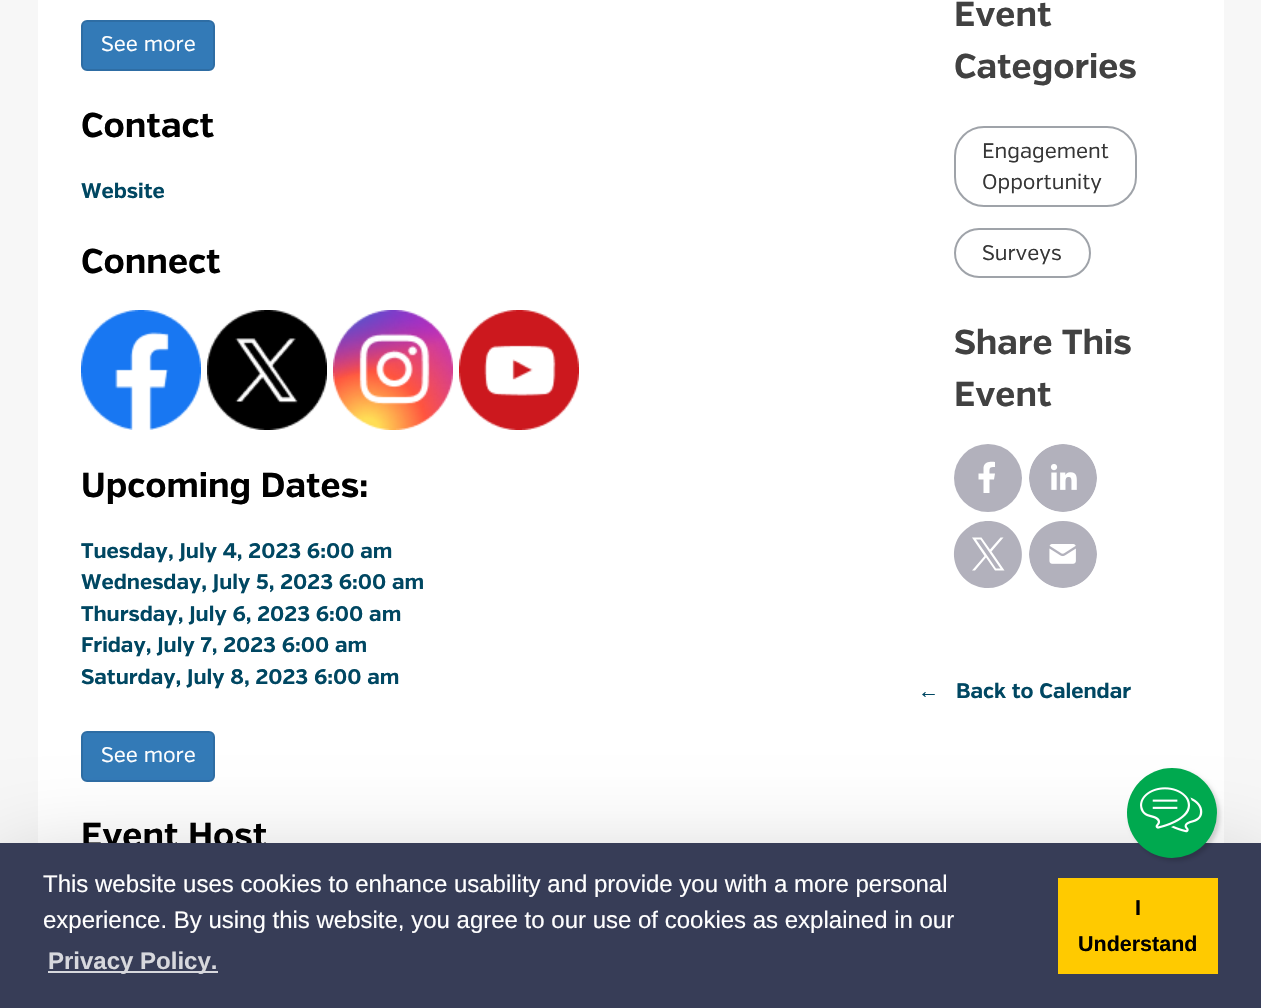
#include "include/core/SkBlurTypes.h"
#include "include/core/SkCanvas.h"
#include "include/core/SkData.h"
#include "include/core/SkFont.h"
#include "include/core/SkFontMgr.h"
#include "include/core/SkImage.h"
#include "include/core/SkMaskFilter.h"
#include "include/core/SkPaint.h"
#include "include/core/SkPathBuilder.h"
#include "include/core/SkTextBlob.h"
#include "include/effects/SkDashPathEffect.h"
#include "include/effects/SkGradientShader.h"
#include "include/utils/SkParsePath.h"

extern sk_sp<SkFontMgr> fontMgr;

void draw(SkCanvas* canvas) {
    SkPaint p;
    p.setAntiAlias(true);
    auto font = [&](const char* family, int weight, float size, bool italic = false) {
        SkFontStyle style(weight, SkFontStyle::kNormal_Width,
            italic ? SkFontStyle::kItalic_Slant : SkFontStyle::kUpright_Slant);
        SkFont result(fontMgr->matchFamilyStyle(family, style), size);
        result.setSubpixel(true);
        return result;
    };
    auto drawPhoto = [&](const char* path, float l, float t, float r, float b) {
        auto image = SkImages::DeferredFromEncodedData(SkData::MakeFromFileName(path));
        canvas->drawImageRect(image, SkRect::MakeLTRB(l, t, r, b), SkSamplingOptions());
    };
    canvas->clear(0xFFF7F7F7);
    p.setColor(0xFFFFFFFF);
    canvas->drawRect(SkRect::MakeLTRB(38, 0, 1224, 843), p);
    p.setColor(0xFF337AB7);
    canvas->drawRoundRect(SkRect::MakeLTRB(82, 21, 214, 70), 5, 5, p);
    p.setStyle(SkPaint::kStroke_Style);
    p.setStrokeWidth(2);
    p.setColor(0xFF2E6DA4);
    canvas->drawRoundRect(SkRect::MakeLTRB(82, 21, 214, 70), 5, 5, p);
    auto font1 = font("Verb", 400, 21);
    p.setStyle(SkPaint::kFill_Style);
    p.setColor(0xFFFFFFFF);
    canvas->drawString("See more", 101, 51, font1, p);
    auto font2 = font("Verb", 700, 34.5f);
    p.setColor(0xFF000000);
    canvas->drawString("Contact", 81, 137, font2, p);
    auto font3 = font("Verb", 700, 21);
    p.setColor(0xFF004762);
    canvas->drawString("Website", 81, 198, font3, p);
    p.setColor(0xFF000000);
    canvas->drawString("Connect", 81, 273, font2, p);
    drawPhoto("media/1.png", 81, 310, 201, 430);
    drawPhoto("media/2.png", 207, 310, 327, 430);
    drawPhoto("media/3.png", 333, 310, 453, 430);
    drawPhoto("media/4.png", 459, 310, 579, 430);
    canvas->drawString("Upcoming Dates:", 81, 497, font2, p);
    p.setColor(0xFF004762);
    {
        const struct { const char* s; float x, y; } items[] = {
            {"Tuesday, July 4, 2023 6:00 am", 81, 558},
            {"Wednesday, July 5, 2023 6:00 am", 81, 589},
            {"Thursday, July 6, 2023 6:00 am", 81, 621},
            {"Friday, July 7, 2023 6:00 am", 81, 652},
            {"Saturday, July 8, 2023 6:00 am", 81, 684},
        };
        for (auto [s, x, y] : items) {
            canvas->drawString(s, x, y, font3, p);
        }
    }
    p.setColor(0xFF337AB7);
    canvas->drawRoundRect(SkRect::MakeLTRB(82, 732, 214, 781), 5, 5, p);
    p.setStyle(SkPaint::kStroke_Style);
    p.setColor(0xFF2E6DA4);
    canvas->drawRoundRect(SkRect::MakeLTRB(82, 732, 214, 781), 5, 5, p);
    p.setStyle(SkPaint::kFill_Style);
    p.setColor(0xFFFFFFFF);
    canvas->drawString("See more", 101, 762, font1, p);
    p.setColor(0xFF000000);
    canvas->drawString("Event Host", 81, 847, font2, p);
    p.setColor(0xFF414141);
    canvas->drawString("Event", 954, 26, font2, p);
    canvas->drawString("Categories", 954, 78, font2, p);
    p.setStyle(SkPaint::kStroke_Style);
    p.setColor(0xFF9FA3A9);
    canvas->drawRoundRect(SkRect::MakeLTRB(955, 127, 1136, 206), 29, 29, p);
    p.setStyle(SkPaint::kFill_Style);
    p.setColor(0xFF363636);
    canvas->drawString("Engagement", 982, 158, font1, p);
    canvas->drawString("Opportunity", 982, 189, font1, p);
    p.setStyle(SkPaint::kStroke_Style);
    p.setColor(0xFF9FA3A9);
    canvas->drawRoundRect(SkRect::MakeLTRB(955, 229, 1090, 277), 24, 24, p);
    p.setStyle(SkPaint::kFill_Style);
    p.setColor(0xFF363636);
    canvas->drawString("Surveys", 982, 260, font1, p);
    p.setColor(0xFF414141);
    canvas->drawString("Share This", 954, 354, font2, p);
    canvas->drawString("Event", 954, 406, font2, p);
    p.setColor(0xFFB2B1BC);
    canvas->drawCircle(988, 478, 34, p);
    p.setColor(0xFFFFFFFF);
    canvas->drawPath(SkPathBuilder().moveTo(994, 479.5f).lineTo(995, 473.5f).lineTo(989.5f, 473.5f).cubicTo(989.5f, 468, 989, 467, 995, 467).lineTo(995, 462).cubicTo(990.5f, 461.5f, 984.5f, 461.5f, 983.5f, 467.5f).lineTo(983.5f, 473.5f).lineTo(978.5f, 473.5f).lineTo(978.5f, 479.5f).lineTo(983.5f, 479.5f).lineTo(983.5f, 493).lineTo(989.5f, 493).lineTo(989.5f, 479.5f).close().detach(), p);
    drawPhoto("media/5.png", 1029, 444, 1097, 512);
    p.setColor(0xFFB2B1BC);
    canvas->drawPath(SkPathBuilder().moveTo(988, 521).cubicTo(1021, 521, 1035, 563, 1007, 582).cubicTo(1001, 586, 995, 588, 988, 588).cubicTo(955, 588, 941, 545, 969, 527).cubicTo(974, 523, 981, 521, 988, 521).close().detach(), p);
    p.setColor(0xFFFFFFFF);
    canvas->drawPath(SkPathBuilder().moveTo(991.5f, 551.5f).lineTo(1003.5f, 537.5f).lineTo(1000.5f, 537.5f).lineTo(990, 549.5f).lineTo(981.5f, 537.5f).lineTo(972, 537.5f).lineTo(984.5f, 556).lineTo(972, 570.5f).lineTo(975, 570.5f).lineTo(986, 557.5f).lineTo(995, 570.5f).lineTo(1004.5f, 570.5f).close().moveTo(987.5f, 556).lineTo(976, 539.5f).lineTo(980.5f, 539.5f).lineTo(1000.5f, 568.5f).lineTo(996, 568.5f).close().detach(), p);
    drawPhoto("media/6.png", 1029, 521, 1097, 588);
    auto font4 = font("Liberation Sans", 700, 21);
    p.setColor(0xFF004762);
    canvas->drawString("←", 918, 698, font4, p);
    canvas->drawString("Back to Calendar", 956, 698, font3, p);
    p.setColor(0x3D000000);
    p.setMaskFilter(SkMaskFilter::MakeBlur(kNormal_SkBlurStyle, 48));
    canvas->drawRect(SkRect::MakeLTRB(0, 870, 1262, 984), p);
    p.setMaskFilter(nullptr);
    p.setColor(0xFF373D57);
    canvas->drawRect(SkRect::MakeLTRB(0, 843, 1261, 1008), p);
    p.setColor(0x29000000);
    p.setMaskFilter(SkMaskFilter::MakeBlur(kNormal_SkBlurStyle, 2));
    canvas->drawRoundRect(SkRect::MakeLTRB(1130, 771, 1220, 861), 45, 45, p);
    p.setMaskFilter(nullptr);
    p.setColor(0xFF00A94F);
    canvas->drawCircle(1172, 813, 45, p);
    drawPhoto("media/7.png", 1140, 787, 1203, 833);
    auto font5 = font("Liberation Sans", 400, 24);
    p.setColor(0xFFFFFFFF);
    canvas->drawString("This website uses cookies to enhance usability and provide you with a more personal", 43, 892, font5, p);
    canvas->drawString("experience. By using this website, you agree to our use of cookies as explained in our", 43, 928, font5, p);
    p.setColor(0xFFD7D8DD);
    canvas->drawRect(SkRect::MakeLTRB(48, 971, 218, 973), p);
    auto font6 = font("Liberation Sans", 700, 24);
    canvas->drawString("Privacy Policy.", 48, 969, font6, p);
    p.setColor(0xFFFFCA00);
    canvas->drawRect(SkRect::MakeLTRB(1058, 878, 1218, 974), p);
    auto font7 = font("Liberation Sans", 700, 21.5f);
    p.setColor(0xFF000000);
    canvas->drawString("I", 1135, 915, font7, p);
    canvas->drawString("Understand", 1078, 951, font7, p);
}
